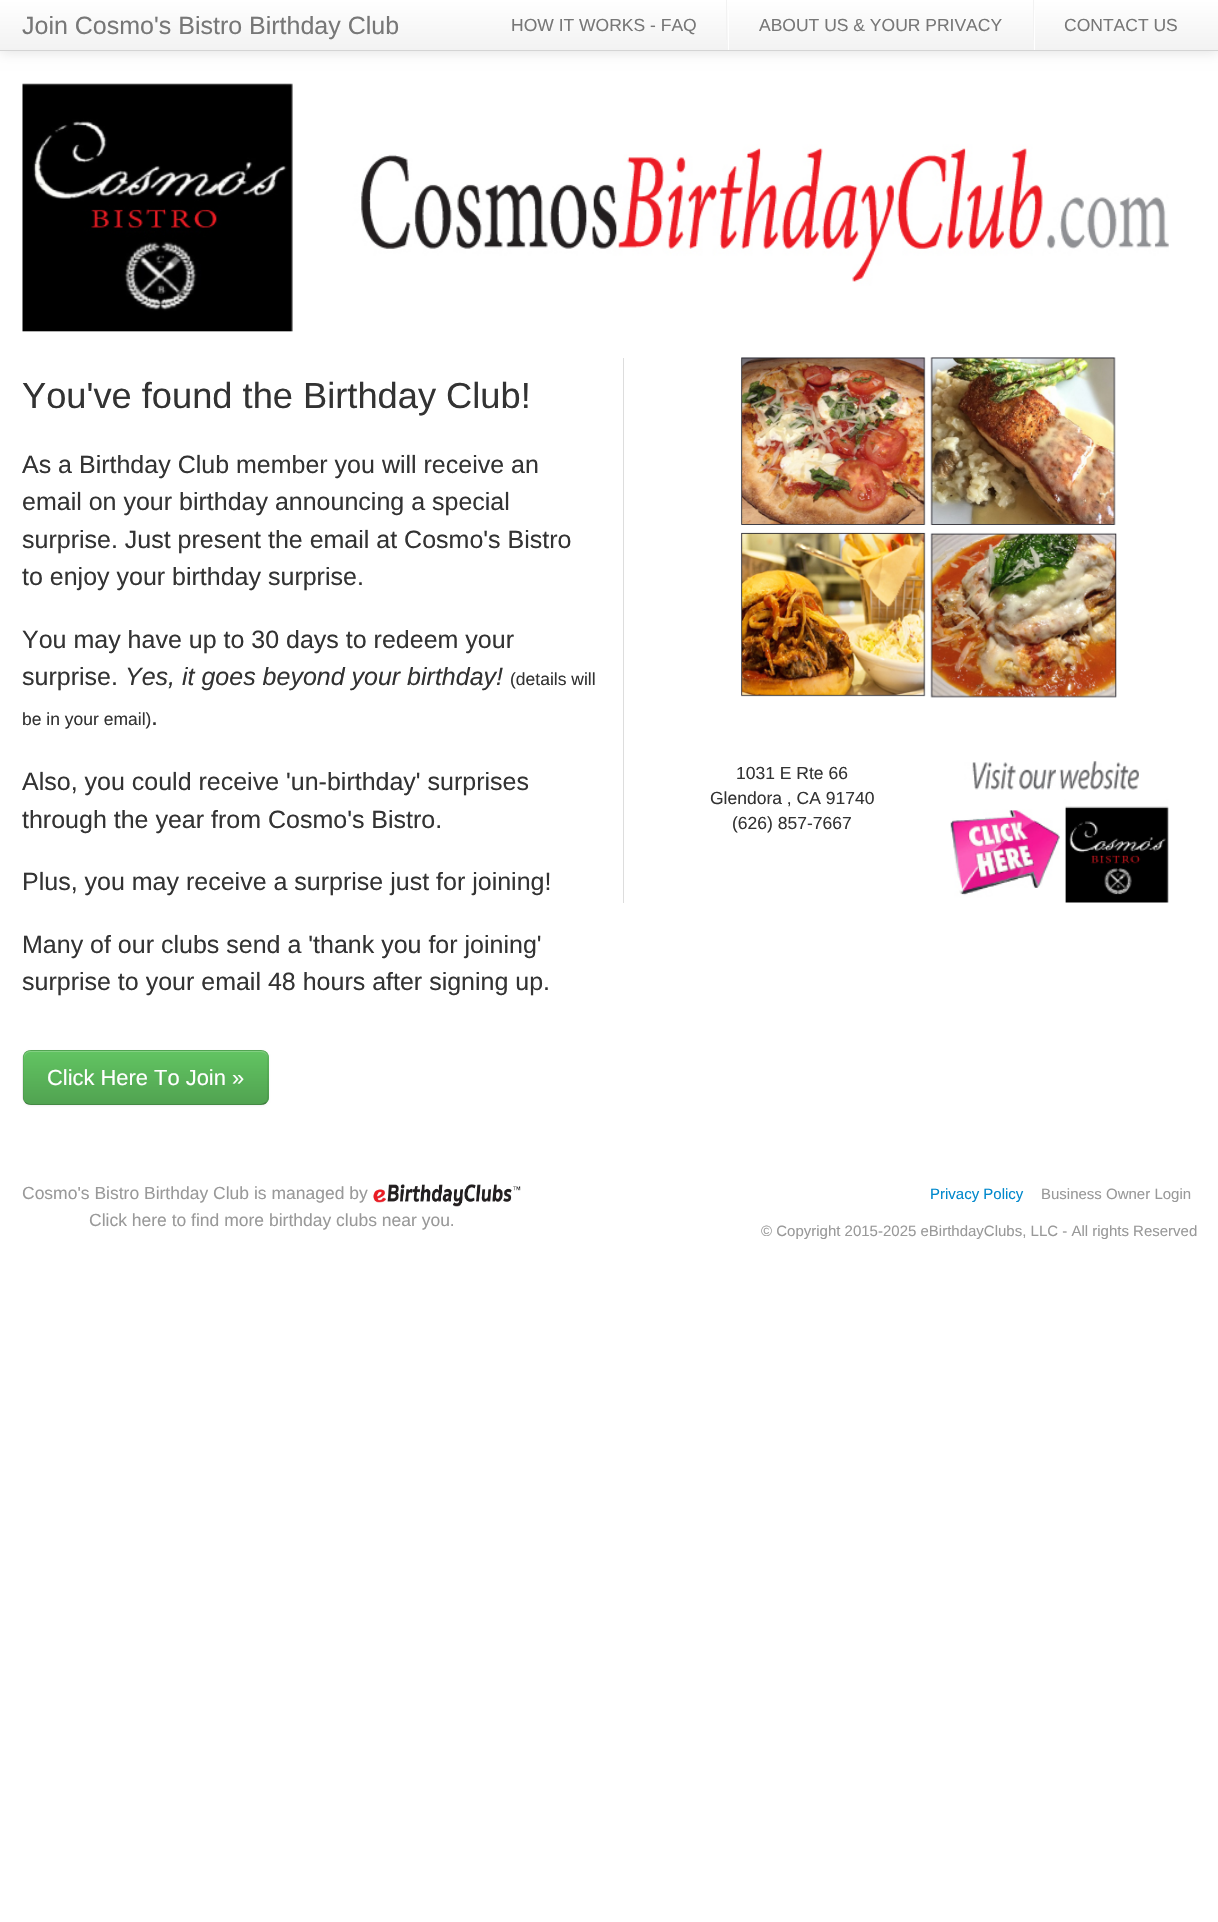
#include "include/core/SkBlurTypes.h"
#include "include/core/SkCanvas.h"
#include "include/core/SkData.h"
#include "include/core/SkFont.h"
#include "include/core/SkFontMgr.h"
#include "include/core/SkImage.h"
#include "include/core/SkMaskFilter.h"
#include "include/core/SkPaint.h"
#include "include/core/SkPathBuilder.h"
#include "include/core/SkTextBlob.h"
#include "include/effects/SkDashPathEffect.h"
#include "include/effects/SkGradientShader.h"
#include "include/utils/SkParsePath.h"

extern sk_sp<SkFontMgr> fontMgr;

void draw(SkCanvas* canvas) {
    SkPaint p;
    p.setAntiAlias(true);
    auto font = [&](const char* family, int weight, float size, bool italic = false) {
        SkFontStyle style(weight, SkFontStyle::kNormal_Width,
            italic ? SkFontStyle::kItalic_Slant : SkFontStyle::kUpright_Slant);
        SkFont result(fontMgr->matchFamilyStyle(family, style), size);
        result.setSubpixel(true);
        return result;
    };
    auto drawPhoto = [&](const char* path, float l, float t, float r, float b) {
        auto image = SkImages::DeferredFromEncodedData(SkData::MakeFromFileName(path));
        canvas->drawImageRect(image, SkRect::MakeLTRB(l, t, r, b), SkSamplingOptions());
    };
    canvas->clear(0xFFFFFFFF);
    p.setColor(0x1A000000);
    p.setMaskFilter(SkMaskFilter::MakeBlur(kNormal_SkBlurStyle, 6));
    canvas->drawRect(SkRect::MakeLTRB(0, 1, 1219, 53), p);
    p.setMaskFilter(nullptr);
    {
        const SkColor colors[] = {0xFFFFFFFF, 0xFFF2F2F2};
        const float stops[] = {0, 1};
        const SkPoint ends[] = {{609, 0}, {609, 50}};
        p.setShader(SkGradientShader::MakeLinear(ends, colors, stops, 2, SkTileMode::kClamp));
        p.setAlpha(255);
    }
    canvas->drawRect(SkRect::MakeLTRB(0, 0, 1218, 50), p);
    p.setShader(nullptr);
    p.setColor(0xFFD4D4D4);
    canvas->drawRect(SkRect::MakeLTRB(0, 50, 1218, 51), p);
    auto font1 = font("Liberation Sans", 400, 25);
    p.setColor(0xFF777777);
    canvas->drawString("Join Cosmo's Bistro Birthday Club", 22, 34, font1, p);
    auto font2 = font("Liberation Sans", 400, 17.5f);
    canvas->drawString("HOW IT WORKS - FAQ", 511, 31, font2, p);
    p.setColor(0xFFFFFFFF);
    canvas->drawRect(SkRect::MakeLTRB(728, 10, 729, 50), p);
    p.setColor(0xFFF2F2F2);
    canvas->drawRect(SkRect::MakeLTRB(726, 0, 727, 40), p);
    p.setColor(0xFF777777);
    canvas->drawString("ABOUT US & YOUR PRIVACY", 759, 31, font2, p);
    p.setColor(0xFFFFFFFF);
    canvas->drawRect(SkRect::MakeLTRB(1034, 10, 1035, 50), p);
    p.setColor(0xFFF2F2F2);
    canvas->drawRect(SkRect::MakeLTRB(1033, 0, 1034, 40), p);
    p.setColor(0xFF777777);
    canvas->drawString("CONTACT US", 1064, 31, font2, p);
    drawPhoto("media/1.png", 22, 83, 1169, 332);
    auto font3 = font("Liberation Sans", 400, 36.25f);
    p.setColor(0xFF333333);
    canvas->drawString("You've found the Birthday Club!", 22, 408, font3, p);
    {
        const struct { const char* s; float x, y; } items[] = {
            {"As a Birthday Club member you will receive an", 22, 473},
            {"email on your birthday announcing a special", 22, 510},
            {"surprise. Just present the email at Cosmo's Bistro", 22, 548},
            {"to enjoy your birthday surprise.", 22, 585},
            {"You may have up to 30 days to redeem your", 22, 648},
            {"surprise.", 22, 685},
        };
        for (auto [s, x, y] : items) {
            canvas->drawString(s, x, y, font1, p);
        }
    }
    auto font4 = font("Liberation Sans", 400, 25, true);
    canvas->drawString("Yes, it goes beyond your birthday!", 125, 685, font4, p);
    canvas->drawString("(details will", 510, 685, font2, p);
    canvas->drawString("be in your email)", 22, 725, font2, p);
    {
        const struct { const char* s; float x, y; } items[] = {
            {".", 151, 725},
            {"Also, you could receive 'un-birthday' surprises", 22, 790},
            {"through the year from Cosmo's Bistro.", 22, 828},
            {"Plus, you may receive a surprise just for joining!", 22, 890},
            {"Many of our clubs send a 'thank you for joining'", 22, 953},
            {"surprise to your email 48 hours after signing up.", 22, 990},
        };
        for (auto [s, x, y] : items) {
            canvas->drawString(s, x, y, font1, p);
        }
    }
    p.setColor(0x0D000000);
    p.setMaskFilter(SkMaskFilter::MakeBlur(kNormal_SkBlurStyle, 1));
    canvas->drawRoundRect(SkRect::MakeLTRB(23, 1051, 269, 1106), 8, 8, p);
    p.setMaskFilter(nullptr);
    p.setColor(0xFF5BB75B);
    canvas->drawRoundRect(SkRect::MakeLTRB(23, 1050, 269, 1105), 8, 8, p);
    canvas->save();
    canvas->clipPath(SkPathBuilder().moveTo(31, 1050).lineTo(261, 1050).cubicTo(265.5f, 1050, 269, 1053.5f, 269, 1058).lineTo(269, 1097).cubicTo(269, 1101.5f, 265.5f, 1105, 261, 1105).lineTo(31, 1105).cubicTo(26.5f, 1105, 23, 1101.5f, 23, 1097).lineTo(23, 1058).cubicTo(23, 1053.5f, 26.5f, 1050, 31, 1050).close().detach(), true);
    {
        const SkColor colors[] = {0xFF62C462, 0xFF51A351};
        const float stops[] = {0, 1};
        const SkPoint ends[] = {{146, 1051}, {146, 1104}};
        p.setShader(SkGradientShader::MakeLinear(ends, colors, stops, 2, SkTileMode::kClamp));
        p.setAlpha(255);
    }
    canvas->drawRect(SkRect::MakeLTRB(23, 1051, 269, 1104), p);
    canvas->restore();
    p.setShader(nullptr);
    p.setColor(0x33FFFFFF);
    canvas->drawPath(SkPathBuilder().moveTo(30, 1052).lineTo(261, 1052).cubicTo(265, 1052, 268, 1055, 268, 1059).lineTo(268, 1057).cubicTo(268, 1054, 265, 1051, 262, 1051).lineTo(30, 1051).cubicTo(27, 1051, 24, 1054, 24, 1057).lineTo(24, 1059).cubicTo(24, 1055, 27, 1052, 30, 1052).close().detach(), p);
    p.setStyle(SkPaint::kStroke_Style);
    p.setStrokeWidth(1.2f);
    p.setColor(0x40000000);
    canvas->drawPath(SkPathBuilder().moveTo(266, 1102.5f).cubicTo(265, 1103.5f, 263, 1104.5f, 261, 1104.5f).lineTo(30, 1104.5f).cubicTo(28, 1104.5f, 26.5f, 1103.5f, 25, 1102.5f).detach(), p);
    p.setColor(0x1A000000);
    canvas->drawPath(SkPathBuilder().moveTo(25, 1102.5f).cubicTo(24, 1101, 23, 1099.5f, 23, 1097.5f).lineTo(23, 1057.5f).cubicTo(23, 1055.5f, 24, 1054, 25, 1052.5f).cubicTo(26.5f, 1051.5f, 28, 1050.5f, 30, 1050.5f).lineTo(261, 1050.5f).cubicTo(263, 1050.5f, 265, 1051.5f, 266, 1052.5f).cubicTo(267.5f, 1054, 268, 1055.5f, 268, 1057.5f).lineTo(268, 1097.5f).cubicTo(268, 1099.5f, 267.5f, 1101, 266, 1102.5f).detach(), p);
    auto font5 = font("Liberation Sans", 400, 21.9f);
    p.setStyle(SkPaint::kFill_Style);
    p.setColor(0xFFFFFFFF);
    canvas->drawString("Click Here To Join »", 47, 1085, font5, p);
    p.setColor(0xFFDDDDDD);
    canvas->drawRect(SkRect::MakeLTRB(623, 358, 624, 903), p);
    drawPhoto("media/2.png", 741, 357, 1117, 698);
    p.setColor(0xFF333333);
    {
        const struct { const char* s; float x, y; } items[] = {
            {"1031 E Rte 66", 736, 779},
            {"Glendora , CA 91740", 710, 804},
            {"(626) 857-7667", 732, 829},
        };
        for (auto [s, x, y] : items) {
            canvas->drawString(s, x, y, font2, p);
        }
    }
    drawPhoto("media/3.png", 950, 761, 1169, 903);
    p.setColor(0xFF999999);
    canvas->drawString("Cosmo's Bistro Birthday Club is managed by", 22, 1199, font2, p);
    drawPhoto("media/4.png", 373, 1184, 521, 1207);
    canvas->drawString("Click here to find more birthday clubs near you.", 89, 1226, font2, p);
    auto font6 = font("Liberation Sans", 400, 15);
    p.setColor(0xFF0088CC);
    canvas->drawString("Privacy Policy", 930, 1199, font6, p);
    p.setColor(0xFF999999);
    canvas->drawString("Business Owner Login", 1041, 1199, font6, p);
    canvas->drawString("© Copyright 2015-2025 eBirthdayClubs, LLC - All rights Reserved", 761, 1236, font6, p);
}
